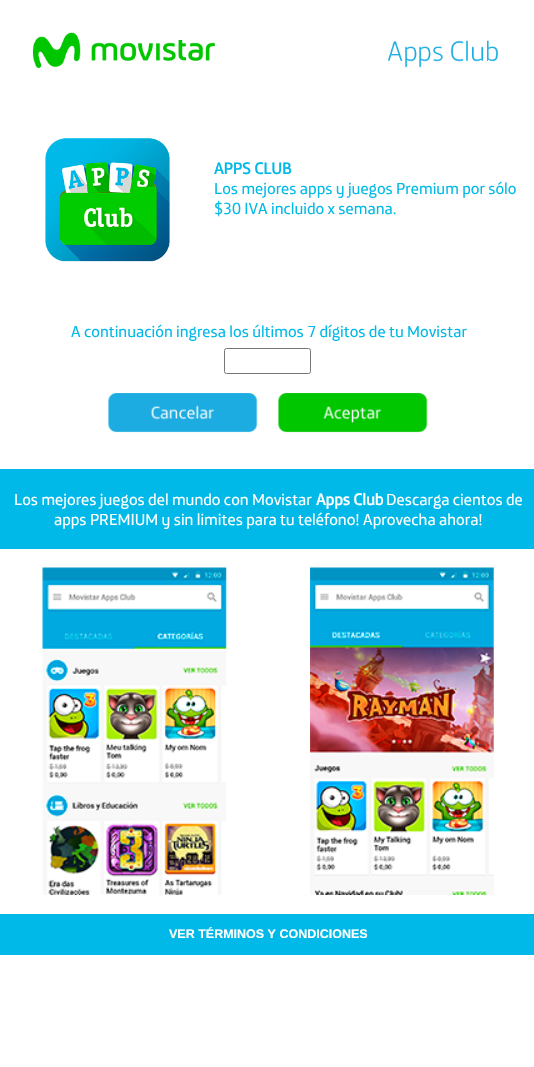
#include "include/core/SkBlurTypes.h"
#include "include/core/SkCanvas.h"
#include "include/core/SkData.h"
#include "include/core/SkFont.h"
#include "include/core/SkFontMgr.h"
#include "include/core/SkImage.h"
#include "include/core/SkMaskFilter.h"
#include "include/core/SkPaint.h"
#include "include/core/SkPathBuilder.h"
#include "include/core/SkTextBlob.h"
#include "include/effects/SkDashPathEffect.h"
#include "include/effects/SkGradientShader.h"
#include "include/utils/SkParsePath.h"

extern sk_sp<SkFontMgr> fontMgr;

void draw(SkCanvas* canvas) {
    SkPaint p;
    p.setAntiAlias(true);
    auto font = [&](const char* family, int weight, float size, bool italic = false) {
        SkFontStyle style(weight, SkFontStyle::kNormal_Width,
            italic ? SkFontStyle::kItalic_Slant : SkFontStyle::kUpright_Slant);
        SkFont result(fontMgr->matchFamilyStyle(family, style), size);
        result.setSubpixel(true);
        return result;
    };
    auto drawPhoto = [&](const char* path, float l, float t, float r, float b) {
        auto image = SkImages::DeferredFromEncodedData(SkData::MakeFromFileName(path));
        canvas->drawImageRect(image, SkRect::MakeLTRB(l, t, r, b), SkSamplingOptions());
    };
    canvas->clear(0xFFFFFFFF);
    drawPhoto("media/1.png", 32, 32, 499, 68);
    drawPhoto("media/2.png", 45, 138, 170, 262);
    auto font1 = font("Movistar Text", 700, 16.25f);
    p.setColor(0xFF00B9E8);
    canvas->drawString("APPS CLUB", 214, 174, font1, p);
    auto font2 = font("Movistar Text", 400, 16.25f);
    {
        const struct { const char* s; float x, y; } items[] = {
            {"Los mejores apps y juegos Premium por sólo", 214, 194},
            {"$30 IVA incluido x semana.", 214, 214},
            {"A continuación ingresa los últimos 7 dígitos de tu Movistar", 71, 337},
        };
        for (auto [s, x, y] : items) {
            canvas->drawString(s, x, y, font2, p);
        }
    }
    p.setStyle(SkPaint::kStroke_Style);
    p.setStrokeWidth(1);
    p.setColor(0xFF767676);
    canvas->drawRoundRect(SkRect::MakeLTRB(224.5f, 348.5f, 310.5f, 373.5f), 2, 2, p);
    drawPhoto("media/3.png", 108, 393, 258, 433);
    drawPhoto("media/4.png", 278, 393, 428, 433);
    p.setStyle(SkPaint::kFill_Style);
    p.setColor(0xFF00B9E8);
    canvas->drawRect(SkRect::MakeLTRB(0, 469, 534, 549), p);
    p.setColor(0xFFFFFFFF);
    canvas->drawString("Los mejores juegos del mundo con Movistar", 14, 505, font2, p);
    canvas->drawString("Apps Club", 316, 505, font1, p);
    canvas->drawString("Descarga cientos de", 386, 505, font2, p);
    canvas->drawString("apps PREMIUM y sin limites para tu teléfono! Aprovecha ahora!", 54, 525, font2, p);
    drawPhoto("media/5.png", 42, 567, 227, 895);
    drawPhoto("media/6.png", 310, 567, 494, 895);
    p.setColor(0xFF00B9E8);
    canvas->drawRect(SkRect::MakeLTRB(0, 914, 534, 955), p);
    auto font3 = font("Liberation Sans", 700, 12.5f);
    p.setColor(0xFFFFFFFF);
    canvas->drawString("VER TÉRMINOS Y CONDICIONES", 169, 938, font3, p);
}
